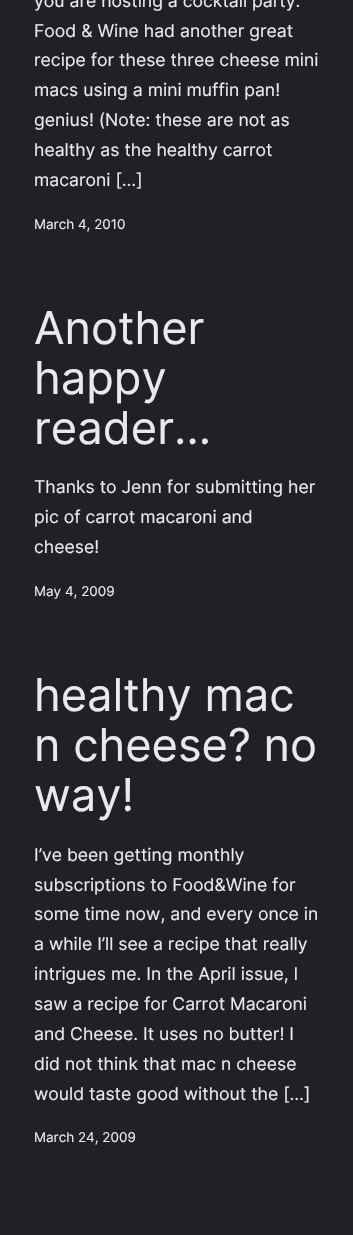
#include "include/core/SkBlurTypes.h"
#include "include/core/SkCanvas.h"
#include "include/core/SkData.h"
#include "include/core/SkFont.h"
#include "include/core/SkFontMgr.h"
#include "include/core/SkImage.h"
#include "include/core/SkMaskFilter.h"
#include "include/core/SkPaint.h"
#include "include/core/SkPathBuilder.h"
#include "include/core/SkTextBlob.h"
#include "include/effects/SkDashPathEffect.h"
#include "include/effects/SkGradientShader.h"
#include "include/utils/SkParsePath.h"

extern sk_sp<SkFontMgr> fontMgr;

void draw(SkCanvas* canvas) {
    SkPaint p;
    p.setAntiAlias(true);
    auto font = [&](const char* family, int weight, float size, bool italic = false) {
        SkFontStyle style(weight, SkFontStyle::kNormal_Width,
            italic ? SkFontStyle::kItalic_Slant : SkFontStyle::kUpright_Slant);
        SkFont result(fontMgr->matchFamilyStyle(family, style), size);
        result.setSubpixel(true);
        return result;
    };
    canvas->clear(0xFF202124);
    auto font1 = font("Inter", 400, 17.6f);
    p.setColor(0xFFE8EAED);
    {
        const struct { const char* s; float x, y; } items[] = {
            {"you are hosting a cocktail party.", 34, 7},
            {"Food & Wine had another great", 34, 37},
            {"recipe for these three cheese mini", 34, 66},
            {"macs using a mini muffin pan!", 34, 96},
            {"genius! (Note: these are not as", 34, 126},
            {"healthy as the healthy carrot", 34, 156},
            {"macaroni […]", 34, 186},
        };
        for (auto [s, x, y] : items) {
            canvas->drawString(s, x, y, font1, p);
        }
    }
    auto font2 = font("Inter", 400, 13.5f);
    canvas->drawString("March 4, 2010", 34, 229, font2, p);
    auto font3 = font("Inter", 400, 45.25f);
    {
        const struct { const char* s; float x, y; } items[] = {
            {"Another", 34, 344},
            {"happy", 34, 394},
            {"reader…", 34, 444},
        };
        for (auto [s, x, y] : items) {
            canvas->drawString(s, x, y, font3, p);
        }
    }
    {
        const struct { const char* s; float x, y; } items[] = {
            {"Thanks to Jenn for submitting her", 34, 493},
            {"pic of carrot macaroni and", 34, 523},
            {"cheese!", 34, 553},
        };
        for (auto [s, x, y] : items) {
            canvas->drawString(s, x, y, font1, p);
        }
    }
    canvas->drawString("May 4, 2009", 34, 596, font2, p);
    {
        const struct { const char* s; float x, y; } items[] = {
            {"healthy mac", 34, 711},
            {"n cheese? no", 34, 761},
            {"way!", 34, 811},
        };
        for (auto [s, x, y] : items) {
            canvas->drawString(s, x, y, font3, p);
        }
    }
    {
        const struct { const char* s; float x, y; } items[] = {
            {"I’ve been getting monthly", 34, 861},
            {"subscriptions to Food&Wine for", 34, 891},
            {"some time now, and every once in", 34, 920},
            {"a while I’ll see a recipe that really", 34, 950},
            {"intrigues me. In the April issue, I", 34, 980},
            {"saw a recipe for Carrot Macaroni", 34, 1010},
            {"and Cheese. It uses no butter! I", 34, 1040},
            {"did not think that mac n cheese", 34, 1070},
            {"would taste good without the […]", 34, 1100},
        };
        for (auto [s, x, y] : items) {
            canvas->drawString(s, x, y, font1, p);
        }
    }
    canvas->drawString("March 24, 2009", 34, 1142, font2, p);
}
